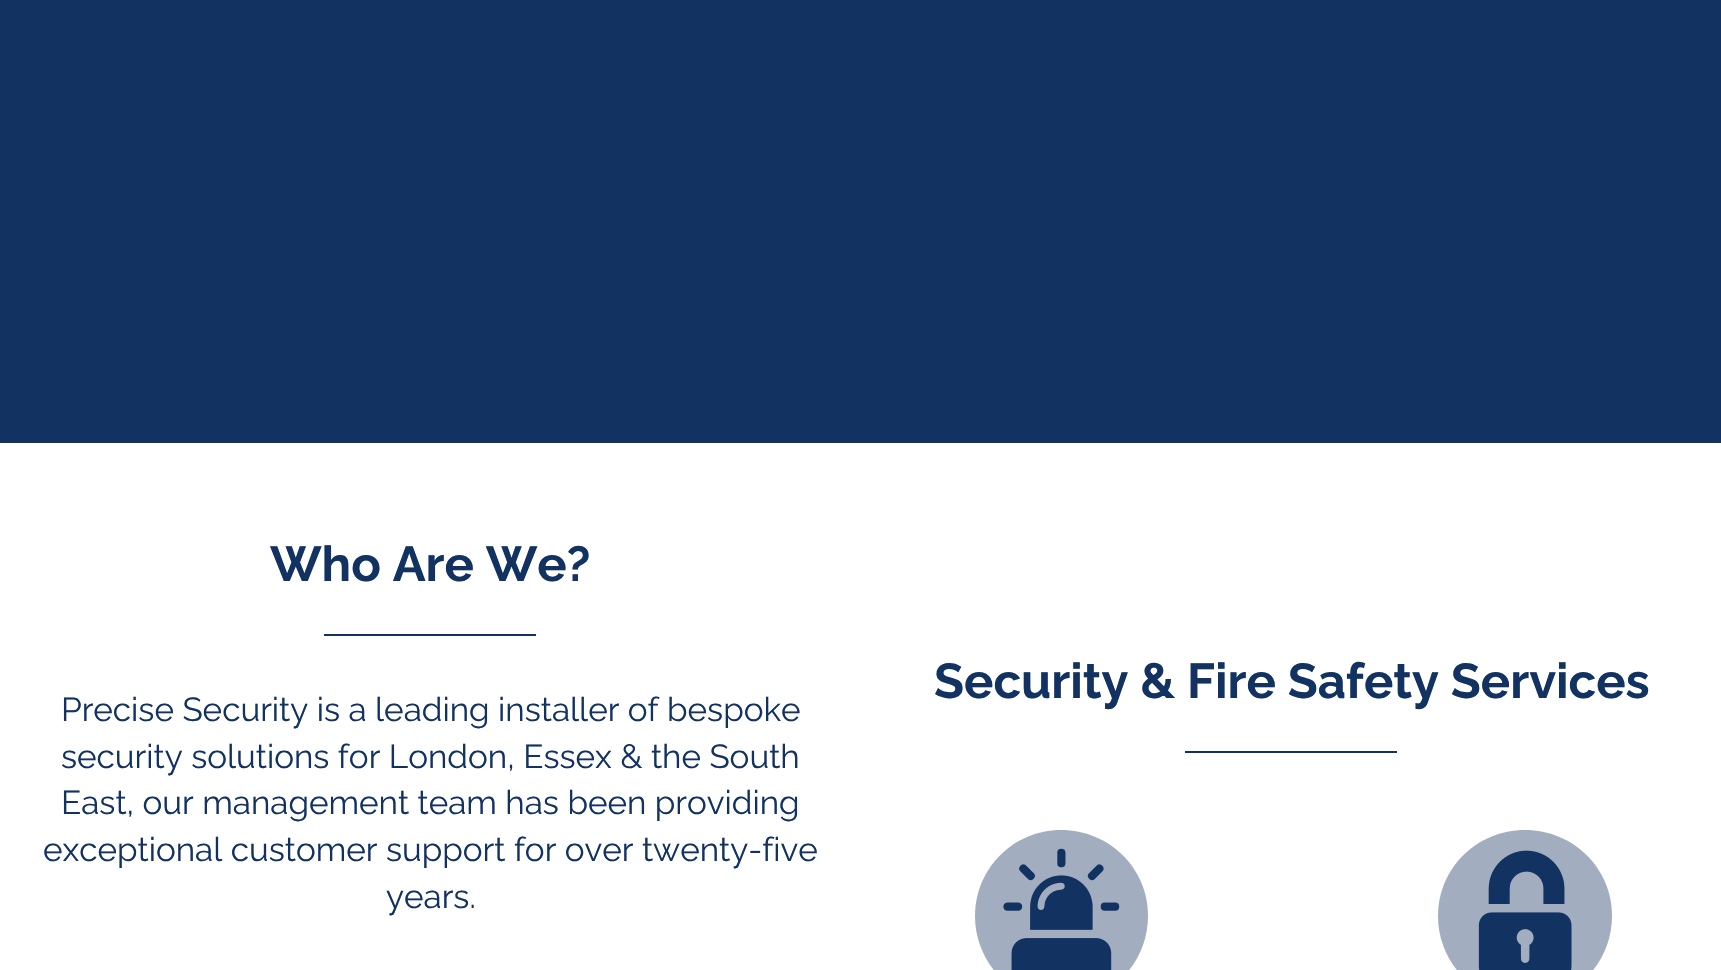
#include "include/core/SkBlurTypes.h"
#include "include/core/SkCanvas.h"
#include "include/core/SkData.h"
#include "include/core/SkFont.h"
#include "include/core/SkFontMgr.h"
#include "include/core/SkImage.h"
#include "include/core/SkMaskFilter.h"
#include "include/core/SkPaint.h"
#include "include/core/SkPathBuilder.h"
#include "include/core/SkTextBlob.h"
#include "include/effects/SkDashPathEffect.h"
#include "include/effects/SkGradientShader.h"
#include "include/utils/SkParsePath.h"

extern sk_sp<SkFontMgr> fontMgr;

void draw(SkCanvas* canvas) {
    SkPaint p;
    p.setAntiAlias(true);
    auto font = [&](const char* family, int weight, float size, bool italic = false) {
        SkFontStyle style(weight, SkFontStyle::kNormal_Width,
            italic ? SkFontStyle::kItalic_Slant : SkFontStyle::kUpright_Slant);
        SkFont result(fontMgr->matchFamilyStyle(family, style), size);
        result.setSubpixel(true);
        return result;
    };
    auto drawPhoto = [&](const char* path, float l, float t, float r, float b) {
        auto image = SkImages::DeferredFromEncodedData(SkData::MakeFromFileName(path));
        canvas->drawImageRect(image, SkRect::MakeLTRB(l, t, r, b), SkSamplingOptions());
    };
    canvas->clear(0xFF123262);
    p.setColor(0xFFFFFFFF);
    canvas->drawRect(SkRect::MakeLTRB(0, 443, 1721, 970), p);
    auto font1 = font("Raleway", 700, 49);
    p.setColor(0xFF123262);
    canvas->drawString("Who Are We?", 270, 581, font1, p);
    canvas->drawRect(SkRect::MakeLTRB(324, 634, 536, 636), p);
    auto font2 = font("Raleway", 400, 33.25f);
    {
        const struct { const char* s; float x, y; } items[] = {
            {"Precise Security is a leading installer of bespoke", 61, 721},
            {"security solutions for London, Essex & the South", 61, 768},
            {"East, our management team has been providing", 61, 814},
            {"exceptional customer support for over twenty-five", 43, 861},
            {"years.", 386, 908},
        };
        for (auto [s, x, y] : items) {
            canvas->drawString(s, x, y, font2, p);
        }
    }
    canvas->drawString("Security & Fire Safety Services", 934, 698, font1, p);
    canvas->drawRect(SkRect::MakeLTRB(1185, 751, 1397, 753), p);
    p.setColor(0xFFA2AEBF);
    canvas->drawPath(SkPathBuilder().moveTo(1148, 916).cubicTo(1148, 964, 1109, 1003, 1061, 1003).cubicTo(1014, 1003, 975, 964, 975, 916).cubicTo(975, 868, 1014, 830, 1061, 830).cubicTo(1109, 830, 1148, 868, 1148, 916).close().detach(), p);
    drawPhoto("media/1.png", 1003, 848, 1120, 970);
    canvas->drawPath(SkPathBuilder().moveTo(1612, 916).cubicTo(1612, 964, 1573, 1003, 1525, 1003).cubicTo(1477, 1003, 1438, 964, 1438, 916).cubicTo(1438, 868, 1477, 830, 1525, 830).cubicTo(1573, 830, 1612, 868, 1612, 916).close().detach(), p);
    drawPhoto("media/2.png", 1478, 850, 1572, 970);
}
